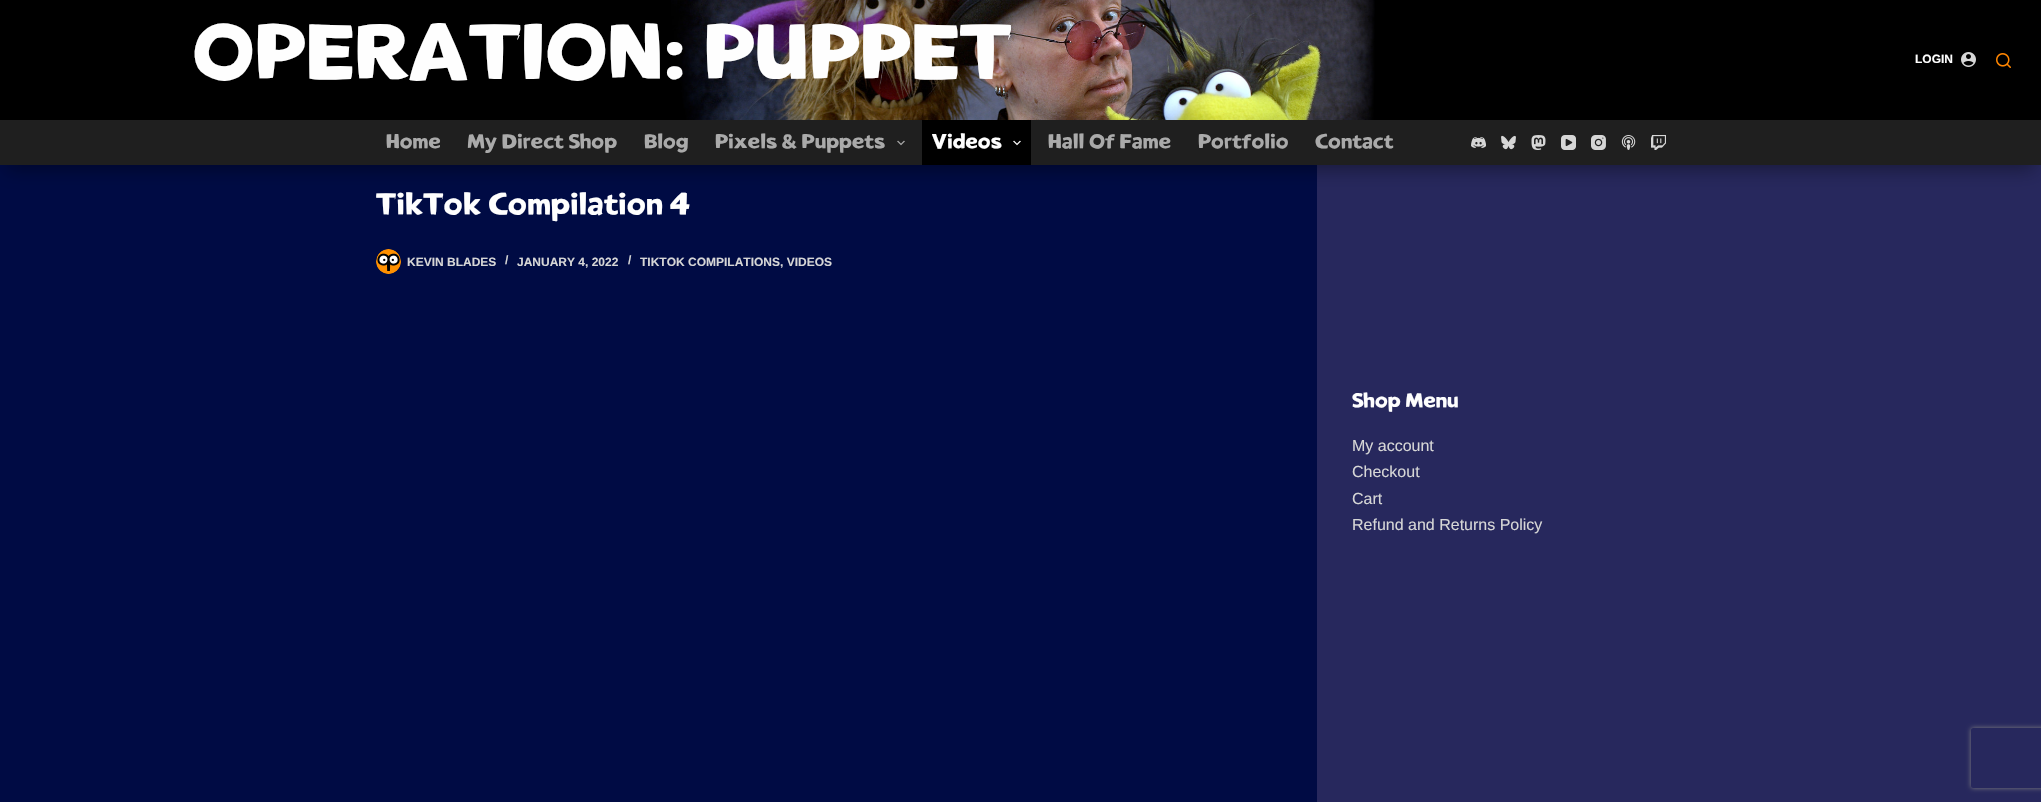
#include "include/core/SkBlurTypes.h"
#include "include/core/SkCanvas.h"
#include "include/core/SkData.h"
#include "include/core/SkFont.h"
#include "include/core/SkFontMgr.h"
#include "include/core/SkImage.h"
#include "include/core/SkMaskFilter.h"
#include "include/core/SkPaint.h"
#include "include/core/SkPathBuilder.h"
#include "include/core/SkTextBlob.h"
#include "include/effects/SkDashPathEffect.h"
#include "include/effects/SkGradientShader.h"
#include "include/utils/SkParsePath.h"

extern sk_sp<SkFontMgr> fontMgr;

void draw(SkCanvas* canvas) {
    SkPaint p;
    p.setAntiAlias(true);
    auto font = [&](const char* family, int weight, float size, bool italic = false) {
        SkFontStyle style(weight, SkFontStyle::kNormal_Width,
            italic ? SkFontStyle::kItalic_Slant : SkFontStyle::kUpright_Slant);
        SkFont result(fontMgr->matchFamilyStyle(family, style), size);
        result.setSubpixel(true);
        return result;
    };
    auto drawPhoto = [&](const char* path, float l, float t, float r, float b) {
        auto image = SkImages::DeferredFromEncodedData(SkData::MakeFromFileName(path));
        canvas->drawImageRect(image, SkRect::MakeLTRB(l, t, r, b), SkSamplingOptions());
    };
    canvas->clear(0xFF000B44);
    p.setColor(0xFF27285D);
    canvas->drawRect(SkRect::MakeLTRB(1317, 165, 2041, 802), p);
    p.setColor(0x66000000);
    p.setMaskFilter(SkMaskFilter::MakeBlur(kNormal_SkBlurStyle, 10));
    canvas->drawRect(SkRect::MakeLTRB(6, 136, 2035, 169), p);
    p.setMaskFilter(nullptr);
    p.setColor(0xFF000000);
    canvas->drawRect(SkRect::MakeLTRB(0, 0, 2041, 120), p);
    drawPhoto("media/1.png", 671, 0, 1375, 120);
    auto font1 = font("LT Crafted", 700, 78);
    p.setColor(0xFFFEFEFE);
    canvas->drawString("OPERATION: PUPPET", 192, 78, font1, p);
    auto font2 = font("Liberation Sans", 700, 12);
    canvas->drawString("LOGIN", 1915, 63, font2, p);
    drawPhoto("media/2.png", 1961, 52, 1976, 67);
    drawPhoto("media/3.png", 1996, 53, 2011, 68);
    p.setColor(0xFF1F1F1F);
    canvas->drawRect(SkRect::MakeLTRB(0, 120, 2041, 165), p);
    auto font3 = font("LT Crafted", 700, 20);
    p.setColor(0xFFAAAAAA);
    {
        const struct { const char* s; float x, y; } items[] = {
            {"Home", 386, 148},
            {"My Direct Shop", 467, 148},
            {"Blog", 644, 148},
            {"Pixels & Puppets", 715, 148},
        };
        for (auto [s, x, y] : items) {
            canvas->drawString(s, x, y, font3, p);
        }
    }
    drawPhoto("media/4.png", 897, 140, 905, 146);
    p.setColor(0xFF000000);
    canvas->drawRect(SkRect::MakeLTRB(922, 120, 1031, 165), p);
    p.setColor(0xFFFEFEFE);
    canvas->drawString("Videos", 932, 148, font3, p);
    drawPhoto("media/5.png", 1013, 140, 1021, 146);
    p.setColor(0xFFAAAAAA);
    {
        const struct { const char* s; float x, y; } items[] = {
            {"Hall Of Fame", 1048, 148},
            {"Portfolio", 1198, 148},
            {"Contact", 1315, 148},
        };
        for (auto [s, x, y] : items) {
            canvas->drawString(s, x, y, font3, p);
        }
    }
    drawPhoto("media/6.png", 1471, 137, 1486, 148);
    drawPhoto("media/7.png", 1501, 135, 1516, 150);
    drawPhoto("media/8.png", 1531, 135, 1546, 150);
    drawPhoto("media/9.png", 1561, 135, 1576, 150);
    drawPhoto("media/10.png", 1591, 135, 1606, 150);
    drawPhoto("media/11.png", 1621, 135, 1636, 150);
    drawPhoto("media/12.png", 1651, 135, 1666, 150);
    auto font4 = font("LT Crafted", 700, 30);
    p.setColor(0xFFFEFEFE);
    canvas->drawString("TikTok Compilation 4", 376, 214, font4, p);
    drawPhoto("media/13.png", 376, 249, 401, 274);
    p.setColor(0xFFD6D6D6);
    {
        const struct { const char* s; float x, y; } items[] = {
            {"KEVIN BLADES", 407, 266},
            {"/", 505, 264},
            {"JANUARY 4, 2022", 517, 266},
            {"/", 628, 264},
            {"TIKTOK COMPILATIONS, VIDEOS", 640, 266},
        };
        for (auto [s, x, y] : items) {
            canvas->drawString(s, x, y, font2, p);
        }
    }
    p.setColor(0xFFFEFEFE);
    canvas->drawString("Shop Menu", 1352, 407, font3, p);
    auto font5 = font("Liberation Sans", 400, 16);
    p.setColor(0xFFD6D6D6);
    {
        const struct { const char* s; float x, y; } items[] = {
            {"My account", 1352, 451},
            {"Checkout", 1352, 477},
            {"Cart", 1352, 504},
            {"Refund and Returns Policy", 1352, 530},
        };
        for (auto [s, x, y] : items) {
            canvas->drawString(s, x, y, font5, p);
        }
    }
    canvas->save();
    canvas->clipPath(SkPathBuilder(SkPathFillType::kEvenOdd).moveTo(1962, 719).lineTo(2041, 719).lineTo(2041, 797).lineTo(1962, 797).close().moveTo(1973, 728).lineTo(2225, 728).cubicTo(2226, 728, 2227, 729, 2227, 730).lineTo(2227, 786).cubicTo(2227, 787, 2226, 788, 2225, 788).lineTo(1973, 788).cubicTo(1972, 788, 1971, 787, 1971, 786).lineTo(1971, 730).cubicTo(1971, 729, 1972, 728, 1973, 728).close().detach(), true);
    p.setColor(0xFF808080);
    p.setMaskFilter(SkMaskFilter::MakeBlur(kNormal_SkBlurStyle, 2.5f));
    canvas->drawRoundRect(SkRect::MakeLTRB(1971, 728, 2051, 788), 2, 2, p);
    p.setMaskFilter(nullptr);
    canvas->restore();
}
